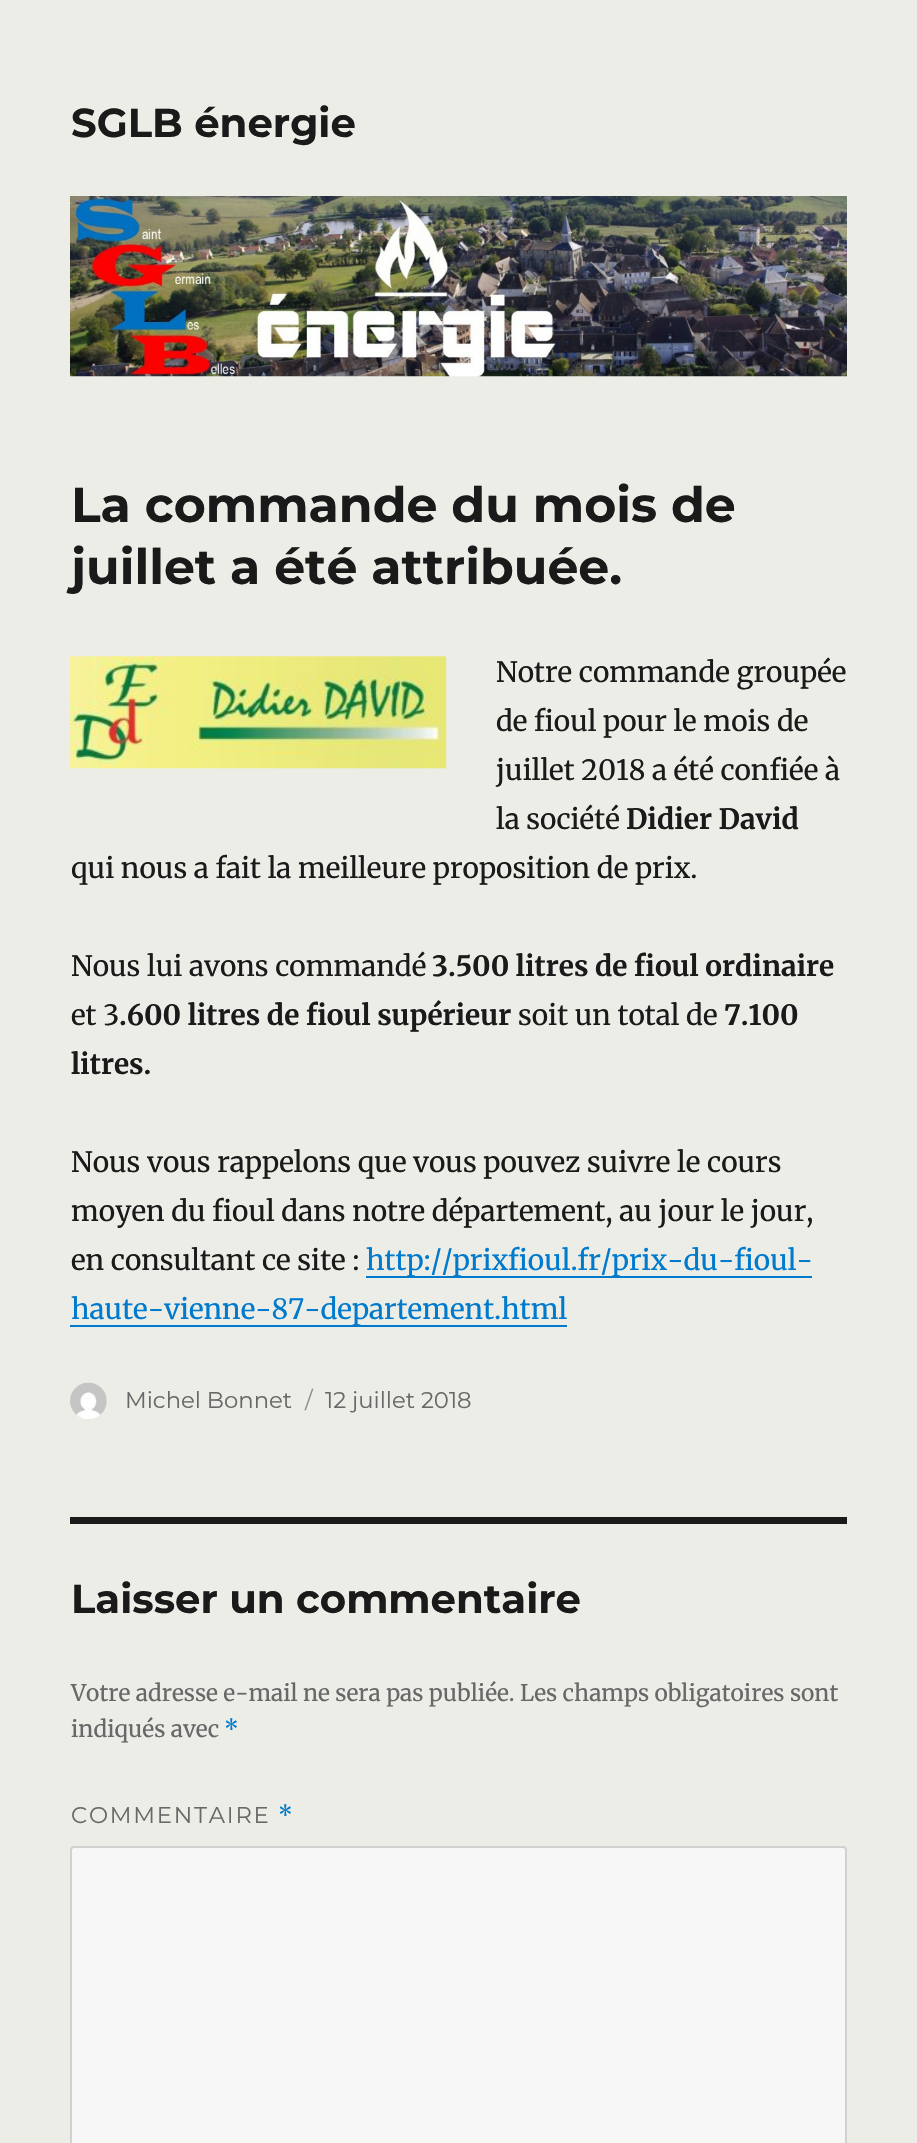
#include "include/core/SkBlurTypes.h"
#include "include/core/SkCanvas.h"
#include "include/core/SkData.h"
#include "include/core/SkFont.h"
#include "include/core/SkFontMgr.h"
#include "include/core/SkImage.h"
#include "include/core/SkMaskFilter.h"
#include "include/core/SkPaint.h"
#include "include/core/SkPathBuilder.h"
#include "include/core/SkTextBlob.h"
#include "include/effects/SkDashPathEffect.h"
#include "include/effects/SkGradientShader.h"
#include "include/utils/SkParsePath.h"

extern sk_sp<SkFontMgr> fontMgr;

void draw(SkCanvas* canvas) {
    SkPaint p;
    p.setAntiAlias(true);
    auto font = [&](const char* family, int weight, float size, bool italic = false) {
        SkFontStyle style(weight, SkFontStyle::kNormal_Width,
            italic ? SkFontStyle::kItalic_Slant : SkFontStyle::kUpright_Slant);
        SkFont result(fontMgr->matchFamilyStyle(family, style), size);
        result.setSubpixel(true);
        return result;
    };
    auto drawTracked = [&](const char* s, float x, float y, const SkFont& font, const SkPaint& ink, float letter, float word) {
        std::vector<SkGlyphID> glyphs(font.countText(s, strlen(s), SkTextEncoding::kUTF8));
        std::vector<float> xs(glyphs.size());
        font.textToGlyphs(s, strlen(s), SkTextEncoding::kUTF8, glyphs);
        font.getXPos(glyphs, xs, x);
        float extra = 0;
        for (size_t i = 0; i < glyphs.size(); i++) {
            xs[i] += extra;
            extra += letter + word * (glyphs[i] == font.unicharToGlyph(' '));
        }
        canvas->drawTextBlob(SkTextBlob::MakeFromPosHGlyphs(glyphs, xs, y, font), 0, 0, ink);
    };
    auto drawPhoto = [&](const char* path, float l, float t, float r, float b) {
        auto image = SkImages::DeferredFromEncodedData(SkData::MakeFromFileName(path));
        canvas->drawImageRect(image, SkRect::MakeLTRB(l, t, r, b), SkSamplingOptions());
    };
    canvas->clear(0xFFEDEDE8);
    auto font1 = font("Montserrat", 700, 40.25f);
    p.setColor(0xFF1A1A1A);
    canvas->drawString("SGLB énergie", 71, 137, font1, p);
    drawPhoto("media/1.png", 70, 196, 847, 377);
    auto font2 = font("Montserrat", 700, 49);
    canvas->drawString("La commande du mois de", 71, 522, font2, p);
    canvas->drawString("juillet a été attribuée.", 71, 584, font2, p);
    drawPhoto("media/2.png", 70, 656, 447, 769);
    auto font3 = font("Merriweather", 400, 28);
    {
        const struct { const char* s; float x, y; } items[] = {
            {"Notre commande groupée", 496, 682},
            {"de fioul pour le mois de", 496, 731},
            {"juillet 2018 a été confiée à", 496, 780},
            {"la société", 496, 829},
        };
        for (auto [s, x, y] : items) {
            canvas->drawString(s, x, y, font3, p);
        }
    }
    auto font4 = font("Merriweather", 700, 28);
    canvas->drawString("Didier David", 626, 829, font4, p);
    canvas->drawString("qui nous a fait la meilleure proposition de prix.", 71, 878, font3, p);
    canvas->drawString("Nous lui avons commandé", 71, 976, font3, p);
    canvas->drawString("3.500 litres de fioul ordinaire", 432, 976, font4, p);
    canvas->drawString("et 3", 71, 1025, font3, p);
    canvas->drawString(".600 litres de fioul supérieur", 119, 1025, font4, p);
    canvas->drawString("soit un total de", 518, 1025, font3, p);
    canvas->drawString("7.100", 724, 1025, font4, p);
    canvas->drawString("litres.", 71, 1074, font4, p);
    {
        const struct { const char* s; float x, y; } items[] = {
            {"Nous vous rappelons que vous pouvez suivre le cours", 71, 1172},
            {"moyen du fioul dans notre département, au jour le jour,", 71, 1221},
            {"en consultant ce site :", 71, 1270},
        };
        for (auto [s, x, y] : items) {
            canvas->drawString(s, x, y, font3, p);
        }
    }
    p.setColor(0xFF007ACC);
    canvas->drawRect(SkRect::MakeLTRB(366, 1276, 812, 1278), p);
    canvas->drawString("http://prixfioul.fr/prix-du-fioul-", 366, 1270, font3, p);
    canvas->drawRect(SkRect::MakeLTRB(70, 1325, 567, 1327), p);
    canvas->drawString("haute-vienne-87-departement.html", 71, 1319, font3, p);
    drawPhoto("media/3.png", 70, 1382, 107, 1419);
    auto font5 = font("Montserrat", 400, 22.75f);
    p.setColor(0xFF686868);
    canvas->drawString("Michel Bonnet", 125, 1408, font5, p);
    p.setColor(0xFF90908E);
    canvas->drawString("/", 305, 1408, font5, p);
    p.setColor(0xFF686868);
    canvas->drawString("12 juillet 2018", 325, 1408, font5, p);
    p.setColor(0xFF1A1A1A);
    canvas->drawRect(SkRect::MakeLTRB(70, 1517, 847, 1524), p);
    canvas->drawString("Laisser un commentaire", 71, 1613, font1, p);
    auto font6 = font("Merriweather", 400, 22.75f);
    p.setColor(0xFF686868);
    canvas->drawString("Votre adresse e-mail ne sera pas publiée. Les champs obligatoires sont", 71, 1701, font6, p);
    canvas->drawString("indiqués avec", 71, 1737, font6, p);
    p.setColor(0xFF007ACC);
    canvas->drawString("*", 224, 1737, font6, p);
    p.setColor(0xFF686868);
    drawTracked("COMMENTAIRE", 71, 1823, font5, p, 1.75f, 0);
    p.setColor(0xFF007ACC);
    drawTracked("*", 278, 1823, font6, p, 1.75f, 0);
    p.setColor(0xFFF7F7F7);
    canvas->drawRoundRect(SkRect::MakeLTRB(71, 1847, 846, 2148), 3, 3, p);
    p.setStyle(SkPaint::kStroke_Style);
    p.setStrokeWidth(2);
    p.setColor(0xFFD1D1D1);
    canvas->drawRoundRect(SkRect::MakeLTRB(71, 1847, 846, 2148), 3, 3, p);
}
